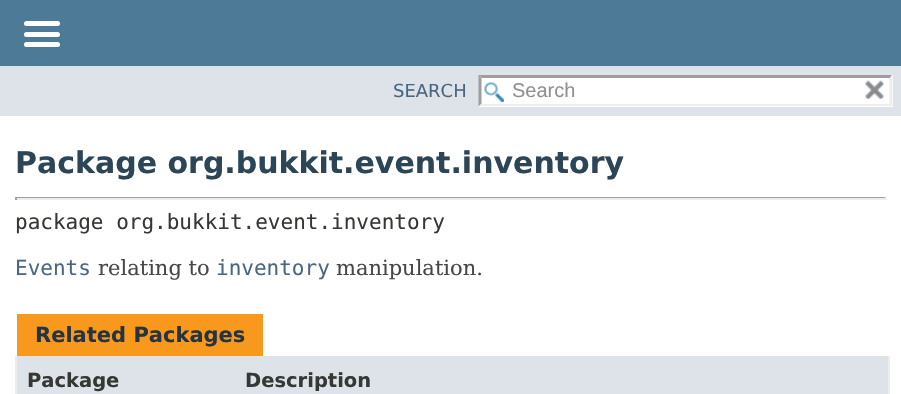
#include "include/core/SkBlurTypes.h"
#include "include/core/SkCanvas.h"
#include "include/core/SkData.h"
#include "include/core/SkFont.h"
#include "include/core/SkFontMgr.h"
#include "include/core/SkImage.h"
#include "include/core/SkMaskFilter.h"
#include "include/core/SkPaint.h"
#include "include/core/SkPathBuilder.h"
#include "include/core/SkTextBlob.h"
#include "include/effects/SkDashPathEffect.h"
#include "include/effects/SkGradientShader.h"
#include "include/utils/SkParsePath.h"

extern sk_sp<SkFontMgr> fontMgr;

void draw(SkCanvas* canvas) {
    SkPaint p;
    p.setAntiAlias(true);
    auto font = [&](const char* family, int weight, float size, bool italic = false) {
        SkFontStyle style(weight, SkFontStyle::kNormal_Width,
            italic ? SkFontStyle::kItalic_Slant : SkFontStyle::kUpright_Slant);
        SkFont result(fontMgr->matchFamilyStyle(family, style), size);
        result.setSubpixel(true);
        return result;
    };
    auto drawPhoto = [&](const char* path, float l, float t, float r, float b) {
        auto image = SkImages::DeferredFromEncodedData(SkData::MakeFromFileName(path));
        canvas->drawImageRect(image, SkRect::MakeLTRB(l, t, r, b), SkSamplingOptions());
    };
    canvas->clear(0xFFFFFFFF);
    p.setColor(0xFF4D7A97);
    canvas->drawRect(SkRect::MakeLTRB(0, 0, 901, 66), p);
    p.setColor(0xFFFFFFFF);
    canvas->drawRoundRect(SkRect::MakeLTRB(24, 21, 60, 26), 2.5f, 2.5f, p);
    canvas->drawRoundRect(SkRect::MakeLTRB(24, 32, 60, 37), 2.5f, 2.5f, p);
    canvas->drawRoundRect(SkRect::MakeLTRB(24, 42, 60, 47), 2.5f, 2.5f, p);
    p.setColor(0xFFDEE3E9);
    canvas->drawRect(SkRect::MakeLTRB(0, 66, 901, 116), p);
    auto font1 = font("DejaVu Sans", 400, 18);
    p.setColor(0xFF4A6782);
    canvas->drawString("SEARCH", 393, 97, font1, p);
    p.setColor(0xFFFFFFFF);
    canvas->drawRect(SkRect::MakeLTRB(479, 75, 893, 107), p);
    drawPhoto("media/1.png", 484, 82, 504, 102);
    p.setColor(0xFF9E9E9E);
    canvas->drawPath(SkPathBuilder().moveTo(478, 75).lineTo(892, 75).lineTo(890, 78).lineTo(482, 78).close().detach(), p);
    p.setColor(0xFFEDEDED);
    canvas->drawPath(SkPathBuilder().moveTo(892.5f, 75).lineTo(892.5f, 106.5f).lineTo(889.5f, 103.5f).lineTo(889.5f, 78).close().detach(), p);
    canvas->drawPath(SkPathBuilder().moveTo(892, 106).lineTo(478, 106).lineTo(482, 104).lineTo(890, 104).close().detach(), p);
    p.setColor(0xFF9E9E9E);
    canvas->drawPath(SkPathBuilder().moveTo(478.5f, 106.5f).lineTo(478.5f, 75).lineTo(481.5f, 78).lineTo(481.5f, 103.5f).close().detach(), p);
    auto font2 = font("Liberation Sans", 400, 20);
    p.setColor(0xFF909090);
    canvas->drawString("Search", 512, 97, font2, p);
    drawPhoto("media/2.png", 865, 80, 884, 99);
    auto font3 = font("DejaVu Sans", 700, 30);
    p.setColor(0xFF2C4557);
    canvas->drawString("Package org.bukkit.event.inventory", 15, 173, font3, p);
    {
        const struct { float l, t, r, b; SkColor color; } items[] = {
            {15, 197, 887, 198, 0xFF9F9F9F},
            {885, 197, 887, 200, 0xFFEEEEEE},
            {15, 198, 887, 200, 0xFFEEEEEE},
            {15, 197, 17, 200, 0xFF9F9F9F},
        };
        for (auto [l, t, r, b, color] : items) {
            p.setColor(color);
            canvas->drawRect(SkRect::MakeLTRB(l, t, r, b), p);
        }
    }
    auto font4 = font("DejaVu Sans Mono", 400, 21);
    p.setColor(0xFF353833);
    canvas->drawString("package org.bukkit.event.inventory", 15, 229, font4, p);
    p.setColor(0xFF4A6782);
    canvas->drawString("Events", 15, 275, font4, p);
    auto font5 = font("DejaVu Serif", 400, 21);
    p.setColor(0xFF474747);
    canvas->drawString("relating to", 98, 275, font5, p);
    p.setColor(0xFF4A6782);
    canvas->drawString("inventory", 216, 275, font4, p);
    p.setColor(0xFF474747);
    canvas->drawString("manipulation.", 336, 275, font5, p);
    p.setColor(0xFFF8981D);
    canvas->drawRect(SkRect::MakeLTRB(17, 314, 263, 356), p);
    auto font6 = font("DejaVu Sans", 700, 21);
    p.setColor(0xFF253441);
    canvas->drawString("Related Packages", 35, 342, font6, p);
    {
        const struct { float l, t, r, b; SkColor color; } items[] = {
            {888, 356, 890, 394, 0xFFEDEDED},
            {15, 356, 17, 394, 0xFFEDEDED},
            {17, 356, 888, 394, 0xFFDEE3E9},
        };
        for (auto [l, t, r, b, color] : items) {
            p.setColor(color);
            canvas->drawRect(SkRect::MakeLTRB(l, t, r, b), p);
        }
    }
    auto font7 = font("DejaVu Sans", 700, 19.5f);
    p.setColor(0xFF353833);
    canvas->drawString("Package", 27, 387, font7, p);
    canvas->drawString("Description", 245, 387, font7, p);
}
